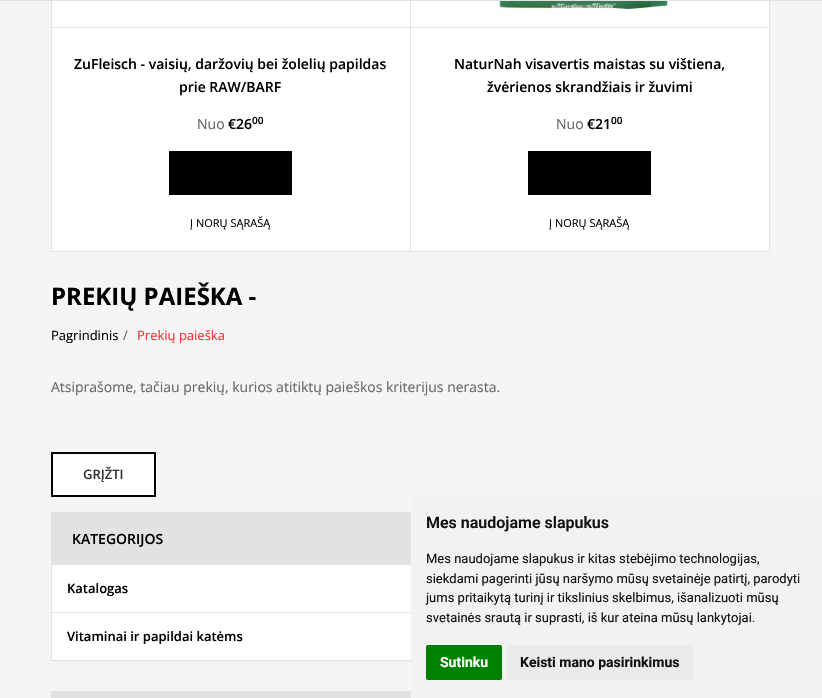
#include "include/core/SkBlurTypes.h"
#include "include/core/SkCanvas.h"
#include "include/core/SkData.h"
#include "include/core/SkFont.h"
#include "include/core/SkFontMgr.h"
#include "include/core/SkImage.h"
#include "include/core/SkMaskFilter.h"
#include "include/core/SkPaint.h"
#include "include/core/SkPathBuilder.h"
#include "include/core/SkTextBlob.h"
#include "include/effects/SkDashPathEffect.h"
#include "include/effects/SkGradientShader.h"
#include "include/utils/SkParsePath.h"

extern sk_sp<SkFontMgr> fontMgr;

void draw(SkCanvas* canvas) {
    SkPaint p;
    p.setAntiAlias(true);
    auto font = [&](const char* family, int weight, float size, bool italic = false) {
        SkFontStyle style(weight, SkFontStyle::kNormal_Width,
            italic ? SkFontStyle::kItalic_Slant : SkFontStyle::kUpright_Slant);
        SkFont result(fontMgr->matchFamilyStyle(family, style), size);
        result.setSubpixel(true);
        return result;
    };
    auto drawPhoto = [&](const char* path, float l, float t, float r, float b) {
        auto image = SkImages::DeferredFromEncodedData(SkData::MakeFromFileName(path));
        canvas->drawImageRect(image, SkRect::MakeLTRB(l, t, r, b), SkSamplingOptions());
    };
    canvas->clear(0xFFF5F5F5);
    p.setColor(0xFFFFFFFF);
    canvas->drawRect(SkRect::MakeLTRB(52, 1, 410, 251), p);
    p.setStyle(SkPaint::kStroke_Style);
    p.setStrokeWidth(1);
    p.setColor(0xFFE2E2E2);
    canvas->drawRect(SkRect::MakeLTRB(51.5f, -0.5f, 410.5f, 251.5f), p);
    p.setStyle(SkPaint::kFill_Style);
    p.setColor(0xFFFFFFFF);
    canvas->drawRect(SkRect::MakeLTRB(411, 1, 769, 251), p);
    p.setStyle(SkPaint::kStroke_Style);
    p.setColor(0xFFE2E2E2);
    canvas->drawRect(SkRect::MakeLTRB(410.5f, -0.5f, 769.5f, 251.5f), p);
    p.setStyle(SkPaint::kFill_Style);
    canvas->drawRect(SkRect::MakeLTRB(0, 0, 822, 1), p);
    canvas->drawRect(SkRect::MakeLTRB(52, 27, 410, 28), p);
    auto font1 = font("Open Sans", 600, 14);
    p.setColor(0xFF000000);
    canvas->drawString("ZuFleisch - vaisių, daržovių bei žolelių papildas", 74, 69, font1, p);
    canvas->drawString("prie RAW/BARF", 179, 92, font1, p);
    auto font2 = font("Open Sans", 400, 14);
    p.setColor(0xFF666666);
    canvas->drawString("Nuo", 197, 129, font2, p);
    p.setColor(0xFF000000);
    canvas->drawString("€26", 228, 129, font1, p);
    auto font3 = font("Open Sans", 600, 10);
    canvas->drawString("00", 252, 124, font3, p);
    canvas->drawRect(SkRect::MakeLTRB(169, 151, 292, 195), p);
    auto font4 = font("Open Sans", 400, 11);
    canvas->drawString("Į NORŲ SĄRAŠĄ", 190, 227, font4, p);
    p.setColor(0xFFE2E2E2);
    canvas->drawRect(SkRect::MakeLTRB(411, 27, 769, 28), p);
    drawPhoto("media/1.png", 497, 1, 671, 12);
    p.setColor(0xFF000000);
    canvas->drawString("NaturNah visavertis maistas su vištiena,", 454, 69, font1, p);
    canvas->drawString("žvėrienos skrandžiais ir žuvimi", 487, 92, font1, p);
    p.setColor(0xFF666666);
    canvas->drawString("Nuo", 556, 129, font2, p);
    p.setColor(0xFF000000);
    canvas->drawString("€21", 587, 129, font1, p);
    canvas->drawString("00", 611, 124, font3, p);
    canvas->drawRect(SkRect::MakeLTRB(528, 151, 651, 195), p);
    canvas->drawString("Į NORŲ SĄRAŠĄ", 549, 227, font4, p);
    auto font5 = font("Open Sans", 700, 24);
    canvas->drawString("PREKIŲ PAIEŠKA -", 51, 305, font5, p);
    auto font6 = font("Open Sans", 400, 13);
    canvas->drawString("Pagrindinis", 51, 340, font6, p);
    p.setColor(0xFF666666);
    canvas->drawString("/", 123, 340, font6, p);
    p.setColor(0xFFF13032);
    canvas->drawString("Prekių paieška", 137, 340, font6, p);
    p.setColor(0xFF666666);
    canvas->drawString("Atsiprašome, tačiau prekių, kurios atitiktų paieškos kriterijus nerasta.", 51, 392, font2, p);
    p.setColor(0xFFFFFFFF);
    canvas->drawRect(SkRect::MakeLTRB(52, 453, 155, 496), p);
    p.setStyle(SkPaint::kStroke_Style);
    p.setStrokeWidth(2);
    p.setColor(0xFF000000);
    canvas->drawRect(SkRect::MakeLTRB(52, 453, 155, 496), p);
    auto font7 = font("Open Sans", 600, 13);
    p.setStyle(SkPaint::kFill_Style);
    p.setColor(0xFF333333);
    canvas->drawString("GRĮŽTI", 83, 479, font7, p);
    p.setColor(0xFFFFFFFF);
    canvas->drawRect(SkRect::MakeLTRB(52, 565, 411, 660), p);
    p.setStyle(SkPaint::kStroke_Style);
    p.setStrokeWidth(1);
    p.setColor(0xFFE2E2E2);
    canvas->drawRect(SkRect::MakeLTRB(51.5f, 512.5f, 770.5f, 660.5f), p);
    p.setStyle(SkPaint::kFill_Style);
    canvas->drawRect(SkRect::MakeLTRB(52, 513, 411, 565), p);
    p.setColor(0xFF000000);
    canvas->drawString("KATEGORIJOS", 72, 544, font1, p);
    p.setColor(0xFFE2E2E2);
    canvas->drawRect(SkRect::MakeLTRB(52, 612, 411, 613), p);
    p.setColor(0xFF000000);
    canvas->drawString("Katalogas", 67, 593, font7, p);
    canvas->drawString("Vitaminai ir papildai katėms", 67, 641, font7, p);
    p.setStyle(SkPaint::kStroke_Style);
    p.setColor(0xFFE2E2E2);
    canvas->drawRect(SkRect::MakeLTRB(51.5f, 691.5f, 770.5f, 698.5f), p);
    p.setStyle(SkPaint::kFill_Style);
    canvas->drawRect(SkRect::MakeLTRB(52, 692, 411, 698), p);
    p.setColor(0xFFF2F2F2);
    canvas->drawRect(SkRect::MakeLTRB(411, 496, 822, 698), p);
    auto font8 = font("Roboto", 600, 16);
    p.setColor(0xFF111111);
    canvas->drawString("Mes naudojame slapukus", 426, 528, font8, p);
    auto font9 = font("Roboto", 400, 13);
    {
        const struct { const char* s; float x, y; } items[] = {
            {"Mes naudojame slapukus ir kitas stebėjimo technologijas,", 426, 563},
            {"siekdami pagerinti jūsų naršymo mūsų svetainėje patirtį, parodyti", 426, 583},
            {"jums pritaikytą turinį ir tikslinius skelbimus, išanalizuoti mūsų", 426, 602},
            {"svetainės srautą ir suprasti, iš kur ateina mūsų lankytojai.", 426, 622},
        };
        for (auto [s, x, y] : items) {
            canvas->drawString(s, x, y, font9, p);
        }
    }
    p.setColor(0xFF008000);
    canvas->drawRoundRect(SkRect::MakeLTRB(426, 645, 502, 680), 2, 2, p);
    auto font10 = font("Roboto", 700, 14);
    p.setColor(0xFFFFFFFF);
    canvas->drawString("Sutinku", 440, 667, font10, p);
    p.setColor(0xFFEAEAEA);
    canvas->drawRoundRect(SkRect::MakeLTRB(506, 645, 693, 680), 2, 2, p);
    p.setColor(0xFF111111);
    canvas->drawString("Keisti mano pasirinkimus", 520, 667, font10, p);
}
